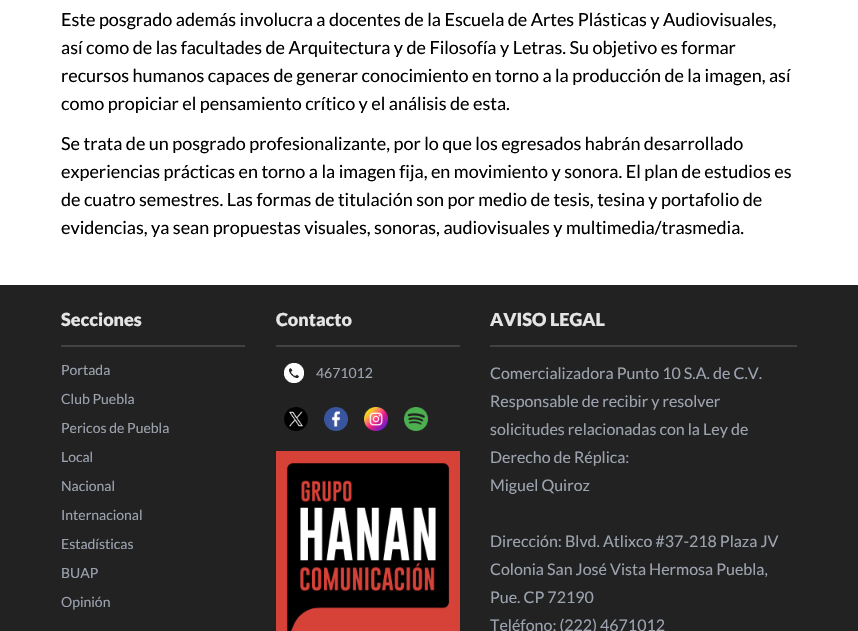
#include "include/core/SkBlurTypes.h"
#include "include/core/SkCanvas.h"
#include "include/core/SkData.h"
#include "include/core/SkFont.h"
#include "include/core/SkFontMgr.h"
#include "include/core/SkImage.h"
#include "include/core/SkMaskFilter.h"
#include "include/core/SkPaint.h"
#include "include/core/SkPathBuilder.h"
#include "include/core/SkTextBlob.h"
#include "include/effects/SkDashPathEffect.h"
#include "include/effects/SkGradientShader.h"
#include "include/utils/SkParsePath.h"

extern sk_sp<SkFontMgr> fontMgr;

void draw(SkCanvas* canvas) {
    SkPaint p;
    p.setAntiAlias(true);
    auto font = [&](const char* family, int weight, float size, bool italic = false) {
        SkFontStyle style(weight, SkFontStyle::kNormal_Width,
            italic ? SkFontStyle::kItalic_Slant : SkFontStyle::kUpright_Slant);
        SkFont result(fontMgr->matchFamilyStyle(family, style), size);
        result.setSubpixel(true);
        return result;
    };
    auto drawPhoto = [&](const char* path, float l, float t, float r, float b) {
        auto image = SkImages::DeferredFromEncodedData(SkData::MakeFromFileName(path));
        canvas->drawImageRect(image, SkRect::MakeLTRB(l, t, r, b), SkSamplingOptions());
    };
    canvas->clear(0xFFFFFFFF);
    auto font1 = font("Lato", 400, 18);
    p.setColor(0xFF000000);
    {
        const struct { const char* s; float x, y; } items[] = {
            {"Este posgrado además involucra a docentes de la Escuela de Artes Plásticas y Audiovisuales,", 61, 26},
            {"así como de las facultades de Arquitectura y de Filosofía y Letras. Su objetivo es formar", 61, 54},
            {"recursos humanos capaces de generar conocimiento en torno a la producción de la imagen, así", 61, 82},
            {"como propiciar el pensamiento crítico y el análisis de esta.", 61, 110},
            {"Se trata de un posgrado profesionalizante, por lo que los egresados habrán desarrollado", 61, 150},
            {"experiencias prácticas en torno a la imagen fija, en movimiento y sonora. El plan de estudios es", 61, 178},
            {"de cuatro semestres. Las formas de titulación son por medio de tesis, tesina y portafolio de", 61, 206},
            {"evidencias, ya sean propuestas visuales, sonoras, audiovisuales y multimedia/trasmedia.", 61, 234},
        };
        for (auto [s, x, y] : items) {
            canvas->drawString(s, x, y, font1, p);
        }
    }
    p.setColor(0xFF222222);
    canvas->drawRect(SkRect::MakeLTRB(0, 285, 858, 631), p);
    p.setColor(0xFF424242);
    canvas->drawRect(SkRect::MakeLTRB(61, 345, 245, 347), p);
    auto font2 = font("Lato", 900, 18);
    p.setColor(0xFFE5E5E5);
    canvas->drawString("Secciones", 61, 326, font2, p);
    auto font3 = font("Lato", 400, 14);
    p.setColor(0xFF9CA3AF);
    {
        const struct { const char* s; float x, y; } items[] = {
            {"Portada", 61, 375},
            {"Club Puebla", 61, 404},
            {"Pericos de Puebla", 61, 433},
            {"Local", 61, 462},
            {"Nacional", 61, 491},
            {"Internacional", 61, 520},
            {"Estadísticas", 61, 549},
            {"BUAP", 61, 578},
            {"Opinión", 61, 607},
        };
        for (auto [s, x, y] : items) {
            canvas->drawString(s, x, y, font3, p);
        }
    }
    p.setColor(0xFF424242);
    canvas->drawRect(SkRect::MakeLTRB(276, 345, 460, 347), p);
    p.setColor(0xFFE5E5E5);
    canvas->drawString("Contacto", 276, 326, font2, p);
    drawPhoto("media/1.png", 284, 363, 304, 383);
    p.setColor(0xFF9CA3AF);
    canvas->drawString("4671012", 316, 378, font3, p);
    drawPhoto("media/2.png", 284, 407, 308, 431);
    drawPhoto("media/3.png", 324, 407, 348, 431);
    drawPhoto("media/4.png", 364, 407, 388, 431);
    drawPhoto("media/5.png", 404, 407, 428, 431);
    drawPhoto("media/6.png", 276, 451, 460, 631);
    p.setColor(0xFF424242);
    canvas->drawRect(SkRect::MakeLTRB(490, 345, 797, 347), p);
    p.setColor(0xFFE5E5E5);
    canvas->drawString("AVISO LEGAL", 490, 326, font2, p);
    auto font4 = font("Lato", 400, 16);
    p.setColor(0xFF9CA3AF);
    {
        const struct { const char* s; float x, y; } items[] = {
            {"Comercializadora Punto 10 S.A. de C.V.", 490, 379},
            {"Responsable de recibir y resolver", 490, 407},
            {"solicitudes relacionadas con la Ley de", 490, 435},
            {"Derecho de Réplica:", 490, 463},
            {"Miguel Quiroz", 490, 491},
            {"Dirección: Blvd. Atlixco #37-218 Plaza JV", 490, 547},
            {"Colonia San José Vista Hermosa Puebla,", 490, 575},
            {"Pue. CP 72190", 490, 603},
            {"Teléfono: (222) 4671012", 490, 631},
        };
        for (auto [s, x, y] : items) {
            canvas->drawString(s, x, y, font4, p);
        }
    }
}
